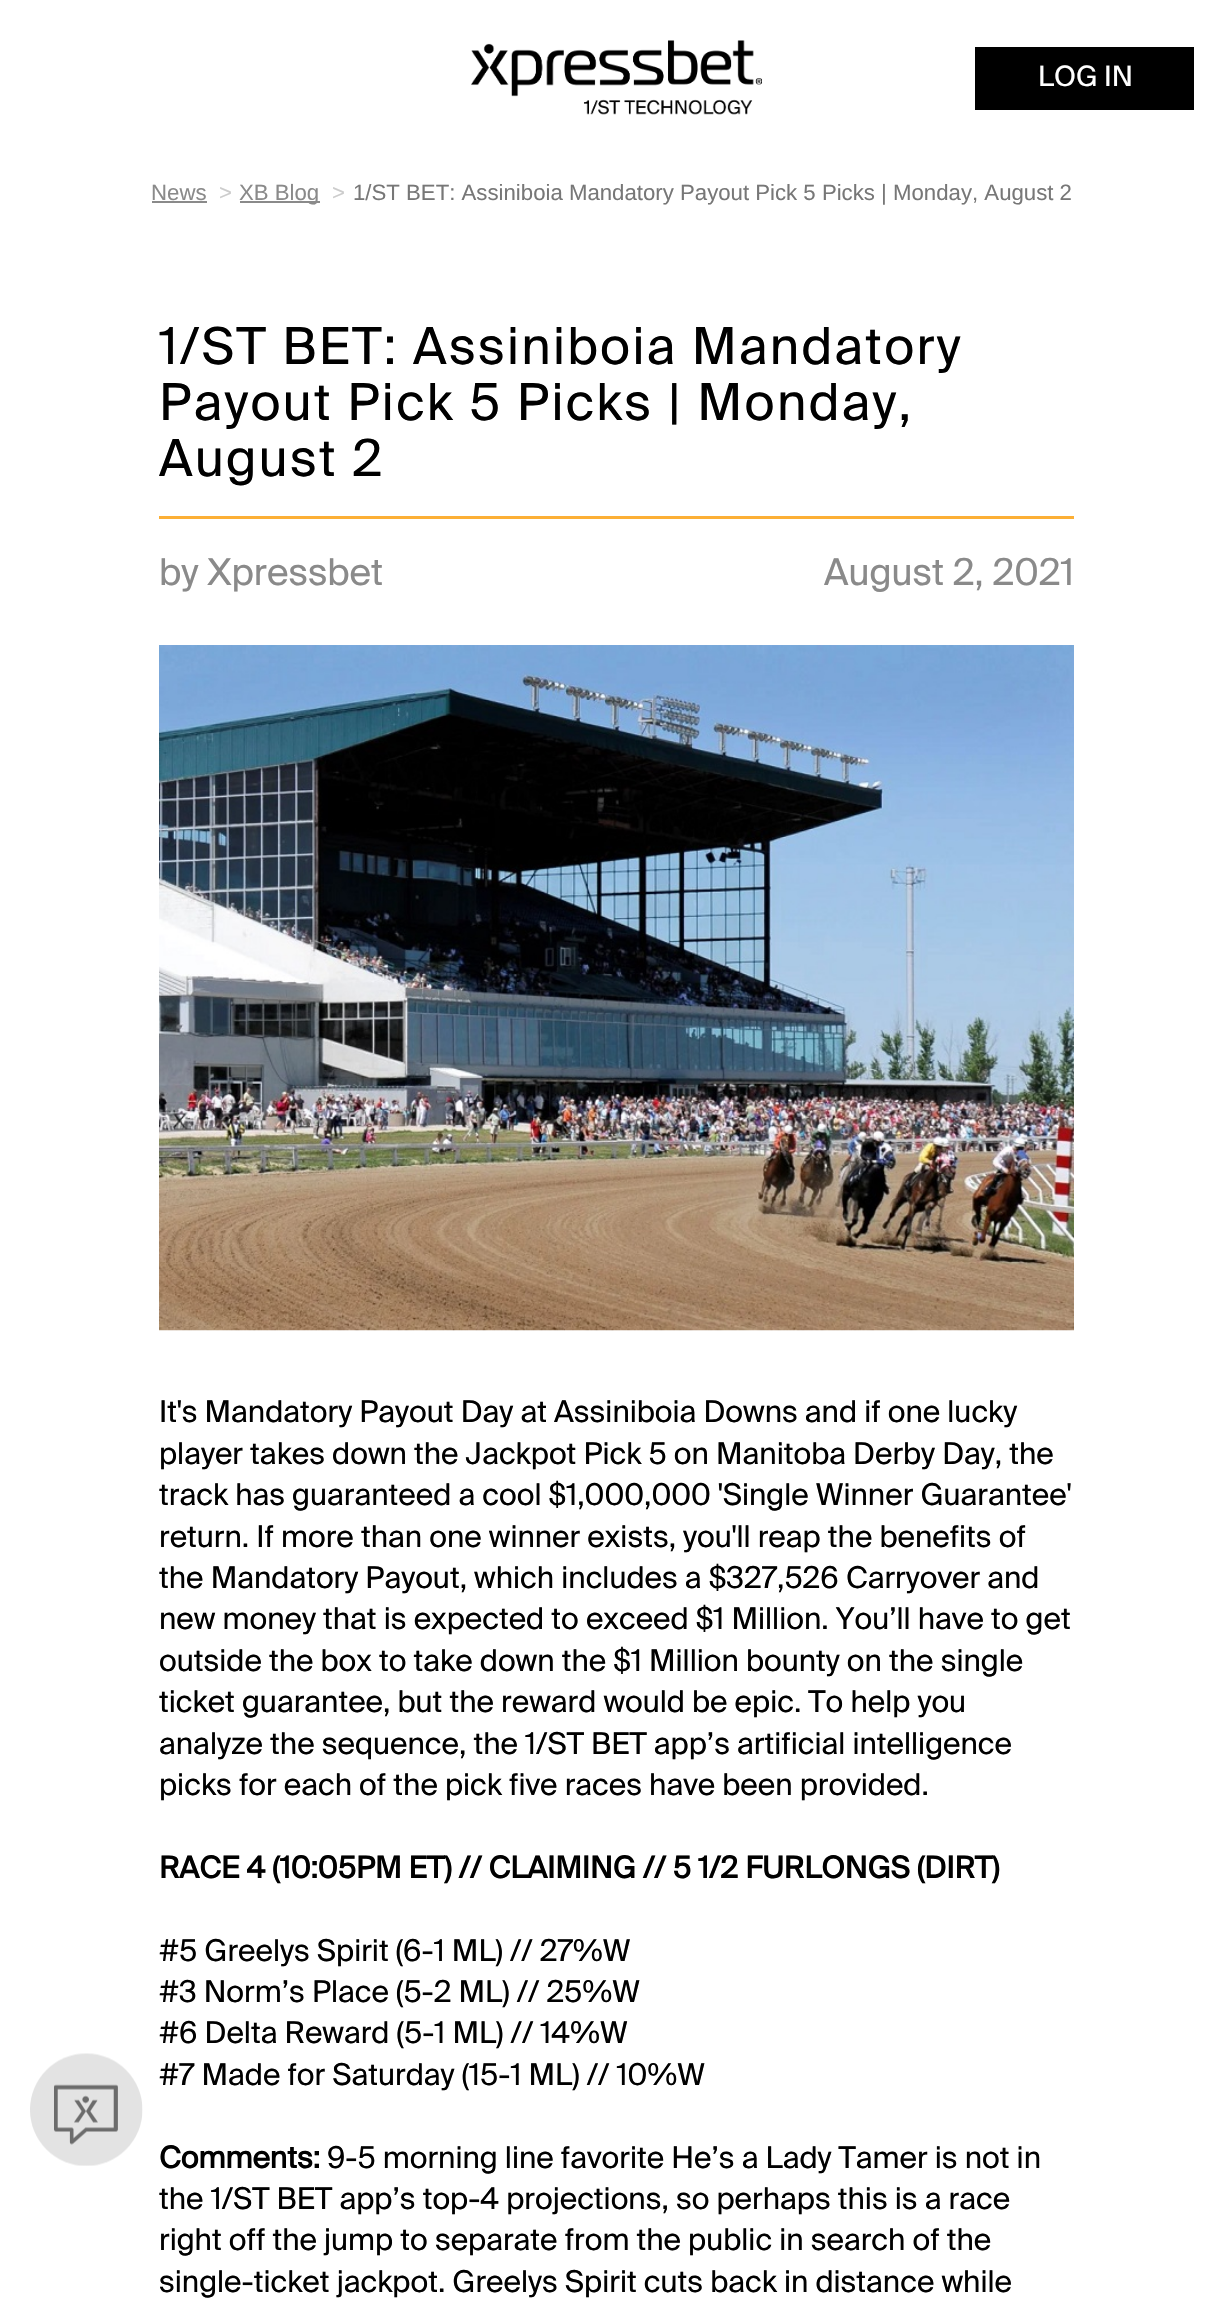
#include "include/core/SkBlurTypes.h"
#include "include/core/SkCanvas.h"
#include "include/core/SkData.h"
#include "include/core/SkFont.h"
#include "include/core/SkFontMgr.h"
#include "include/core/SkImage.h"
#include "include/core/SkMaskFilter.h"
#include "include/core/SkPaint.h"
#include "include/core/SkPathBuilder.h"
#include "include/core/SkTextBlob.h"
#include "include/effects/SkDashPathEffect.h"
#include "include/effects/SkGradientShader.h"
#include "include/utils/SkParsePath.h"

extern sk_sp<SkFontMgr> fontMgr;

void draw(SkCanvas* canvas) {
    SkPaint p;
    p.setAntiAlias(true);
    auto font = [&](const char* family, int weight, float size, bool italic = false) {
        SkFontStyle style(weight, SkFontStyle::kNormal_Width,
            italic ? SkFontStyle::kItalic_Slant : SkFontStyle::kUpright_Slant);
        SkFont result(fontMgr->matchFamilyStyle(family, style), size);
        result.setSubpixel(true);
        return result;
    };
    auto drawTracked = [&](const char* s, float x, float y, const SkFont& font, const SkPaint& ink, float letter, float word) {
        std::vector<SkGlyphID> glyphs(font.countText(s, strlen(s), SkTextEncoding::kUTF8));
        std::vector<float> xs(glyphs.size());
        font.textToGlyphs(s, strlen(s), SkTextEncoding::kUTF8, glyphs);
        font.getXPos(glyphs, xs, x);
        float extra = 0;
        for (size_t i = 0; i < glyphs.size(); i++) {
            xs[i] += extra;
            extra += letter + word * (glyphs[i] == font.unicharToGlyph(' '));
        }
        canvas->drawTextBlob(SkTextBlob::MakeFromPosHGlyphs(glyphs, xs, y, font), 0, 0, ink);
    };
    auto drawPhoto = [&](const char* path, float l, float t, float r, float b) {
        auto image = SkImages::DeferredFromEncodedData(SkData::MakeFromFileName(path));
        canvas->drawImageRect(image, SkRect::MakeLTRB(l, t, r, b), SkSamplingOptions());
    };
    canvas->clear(0xFFFFFFFF);
    drawPhoto("media/1.png", 471, 40, 762, 115);
    p.setColor(0xFF000000);
    canvas->drawRect(SkRect::MakeLTRB(975, 47, 1194, 110), p);
    auto font1 = font("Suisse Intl", 400, 28);
    p.setColor(0xFFFFFFFF);
    canvas->drawString("LOG IN", 1038, 86, font1, p);
    auto font2 = font("Liberation Sans", 400, 22.2f);
    p.setColor(0xFF8A8A8A);
    canvas->drawString("News", 151, 200, font2, p);
    canvas->drawRect(SkRect::MakeLTRB(152, 201, 207, 203), p);
    p.setColor(0xFFCCCCCC);
    canvas->drawString(">", 219, 200, font2, p);
    p.setColor(0xFF8A8A8A);
    canvas->drawRect(SkRect::MakeLTRB(240, 201, 320, 203), p);
    canvas->drawString("XB Blog", 239, 200, font2, p);
    p.setColor(0xFFCCCCCC);
    canvas->drawString(">", 332, 200, font2, p);
    p.setColor(0xFF777777);
    canvas->drawString("1/ST BET: Assiniboia Mandatory Payout Pick 5 Picks | Monday, August 2", 353, 200, font2, p);
    drawPhoto("media/2.png", 30, 2053, 143, 2166);
    p.setColor(0xFFFCAF35);
    canvas->drawRect(SkRect::MakeLTRB(159, 516, 1074, 519), p);
    auto font3 = font("Suisse Intl", 400, 50.9f);
    p.setColor(0xFF000000);
    {
        const struct { const char* s; float x, y; } items[] = {
            {"1/ST BET: Assiniboia Mandatory", 159, 364},
            {"Payout Pick 5 Picks | Monday,", 159, 420},
            {"August 2", 159, 476},
        };
        for (auto [s, x, y] : items) {
            drawTracked(s, x, y, font3, p, 2.3f, 0);
        }
    }
    auto font4 = font("Suisse Intl", 400, 37);
    p.setColor(0xFF8A8A8A);
    canvas->drawString("by Xpressbet", 159, 585, font4, p);
    canvas->drawString("August 2, 2021", 824, 585, font4, p);
    drawPhoto("media/3.png", 159, 645, 1074, 1331);
    auto font5 = font("Suisse Intl", 400, 30);
    p.setColor(0xFF000000);
    {
        const struct { const char* s; float x, y; } items[] = {
            {"It's Mandatory Payout Day at Assiniboia Downs and if one lucky", 159, 1422},
            {"player takes down the Jackpot Pick 5 on Manitoba Derby Day, the", 159, 1464},
            {"track has guaranteed a cool $1,000,000 'Single Winner Guarantee'", 159, 1505},
            {"return. If more than one winner exists, you'll reap the benefits of", 159, 1547},
            {"the Mandatory Payout, which includes a $327,526 Carryover and", 159, 1588},
            {"new money that is expected to exceed $1 Million. You’ll have to get", 159, 1629},
            {"outside the box to take down the $1 Million bounty on the single", 159, 1671},
            {"ticket guarantee, but the reward would be epic. To help you", 159, 1712},
            {"analyze the sequence, the 1/ST BET app’s artificial intelligence", 159, 1754},
            {"picks for each of the pick five races have been provided.", 159, 1795},
        };
        for (auto [s, x, y] : items) {
            canvas->drawString(s, x, y, font5, p);
        }
    }
    auto font6 = font("Suisse Intl", 700, 30);
    canvas->drawString("RACE 4 (10:05PM ET) // CLAIMING // 5 1/2 FURLONGS (DIRT)", 159, 1878, font6, p);
    {
        const struct { const char* s; float x, y; } items[] = {
            {"#5 Greelys Spirit (6-1 ML) // 27%W", 159, 1961},
            {"#3 Norm’s Place (5-2 ML) // 25%W", 159, 2002},
            {"#6 Delta Reward (5-1 ML) // 14%W", 159, 2043},
            {"#7 Made for Saturday (15-1 ML) // 10%W", 159, 2085},
        };
        for (auto [s, x, y] : items) {
            canvas->drawString(s, x, y, font5, p);
        }
    }
    canvas->drawString("Comments:", 159, 2168, font6, p);
    {
        const struct { const char* s; float x, y; } items[] = {
            {"9-5 morning line favorite He’s a Lady Tamer is not in", 327, 2168},
            {"the 1/ST BET app’s top-4 projections, so perhaps this is a race", 159, 2209},
            {"right off the jump to separate from the public in search of the", 159, 2250},
            {"single-ticket jackpot. Greelys Spirit cuts back in distance while", 159, 2292},
        };
        for (auto [s, x, y] : items) {
            canvas->drawString(s, x, y, font5, p);
        }
    }
}
